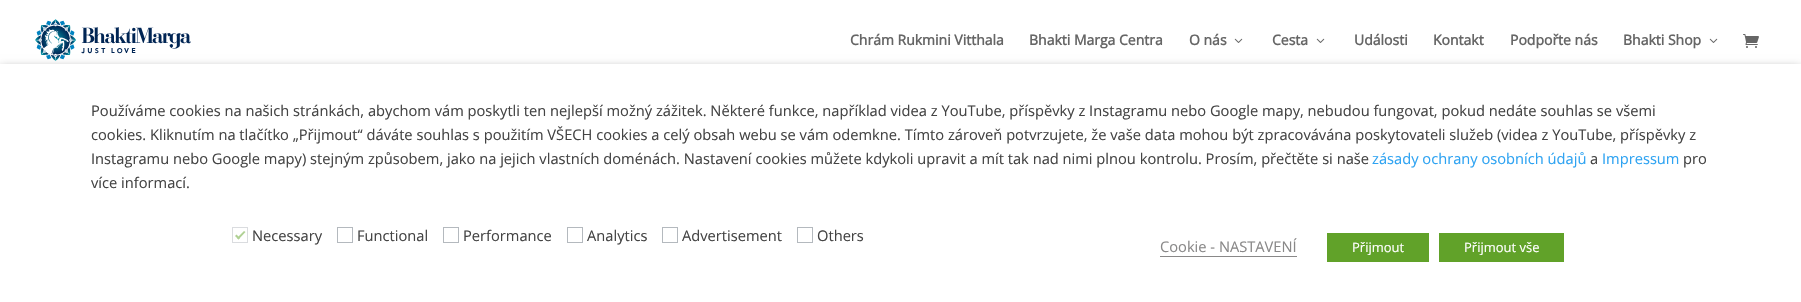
#include "include/core/SkBlurTypes.h"
#include "include/core/SkCanvas.h"
#include "include/core/SkData.h"
#include "include/core/SkFont.h"
#include "include/core/SkFontMgr.h"
#include "include/core/SkImage.h"
#include "include/core/SkMaskFilter.h"
#include "include/core/SkPaint.h"
#include "include/core/SkPathBuilder.h"
#include "include/core/SkTextBlob.h"
#include "include/effects/SkDashPathEffect.h"
#include "include/effects/SkGradientShader.h"
#include "include/utils/SkParsePath.h"

extern sk_sp<SkFontMgr> fontMgr;

void draw(SkCanvas* canvas) {
    SkPaint p;
    p.setAntiAlias(true);
    auto font = [&](const char* family, int weight, float size, bool italic = false) {
        SkFontStyle style(weight, SkFontStyle::kNormal_Width,
            italic ? SkFontStyle::kItalic_Slant : SkFontStyle::kUpright_Slant);
        SkFont result(fontMgr->matchFamilyStyle(family, style), size);
        result.setSubpixel(true);
        return result;
    };
    auto drawPhoto = [&](const char* path, float l, float t, float r, float b) {
        auto image = SkImages::DeferredFromEncodedData(SkData::MakeFromFileName(path));
        canvas->drawImageRect(image, SkRect::MakeLTRB(l, t, r, b), SkSamplingOptions());
    };
    canvas->clear(0xFFFFFFFF);
    drawPhoto("media/1.png", 35, 19, 191, 61);
    auto font1 = font("Open Sans", 700, 14);
    p.setColor(0xFF666666);
    {
        const struct { const char* s; float x, y; } items[] = {
            {"Chrám Rukmini Vitthala", 850, 45},
            {"Bhakti Marga Centra", 1029, 45},
            {"O nás", 1189, 45},
        };
        for (auto [s, x, y] : items) {
            canvas->drawString(s, x, y, font1, p);
        }
    }
    drawPhoto("media/2.png", 1234, 38, 1243, 43);
    canvas->drawString("Cesta", 1272, 45, font1, p);
    drawPhoto("media/2.png", 1316, 38, 1325, 43);
    {
        const struct { const char* s; float x, y; } items[] = {
            {"Události", 1354, 45},
            {"Kontakt", 1433, 45},
            {"Podpořte nás", 1510, 45},
            {"Bhakti Shop", 1623, 45},
        };
        for (auto [s, x, y] : items) {
            canvas->drawString(s, x, y, font1, p);
        }
    }
    drawPhoto("media/2.png", 1709, 38, 1718, 43);
    drawPhoto("media/3.png", 1743, 34, 1759, 48);
    p.setColor(0x80000000);
    p.setMaskFilter(SkMaskFilter::MakeBlur(kNormal_SkBlurStyle, 5));
    canvas->drawRect(SkRect::MakeLTRB(0, 69, 1801, 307), p);
    p.setMaskFilter(nullptr);
    p.setColor(0xFFFFFFFF);
    canvas->drawRect(SkRect::MakeLTRB(0, 64, 1801, 302), p);
    auto font2 = font("Open Sans", 400, 14.67f);
    p.setColor(0xFF444444);
    {
        const struct { const char* s; float x, y; } items[] = {
            {"Používáme cookies na našich stránkách, abychom vám poskytli ten nejlepší možný zážitek. Některé funkce, například videa z YouTube, příspěvky z Instagramu nebo Google mapy, nebudou fungovat, pokud nedáte souhlas se všemi", 91, 116},
            {"cookies. Kliknutím na tlačítko „Přijmout“ dáváte souhlas s použitím VŠECH cookies a celý obsah webu se vám odemkne. Tímto zároveň potvrzujete, že vaše data mohou být zpracovávána poskytovateli služeb (videa z YouTube, příspěvky z", 91, 140},
            {"Instagramu nebo Google mapy) stejným způsobem, jako na jejich vlastních doménách. Nastavení cookies můžete kdykoli upravit a mít tak nad nimi plnou kontrolu. Prosím, přečtěte si naše", 91, 164},
        };
        for (auto [s, x, y] : items) {
            canvas->drawString(s, x, y, font2, p);
        }
    }
    p.setColor(0xFF2EA3F2);
    canvas->drawString("zásady ochrany osobních údajů", 1372, 164, font2, p);
    p.setColor(0xFF444444);
    canvas->drawString("a", 1590, 164, font2, p);
    p.setColor(0xFF2EA3F2);
    canvas->drawString("Impressum", 1602, 164, font2, p);
    p.setColor(0xFF444444);
    canvas->drawString("pro", 1683, 164, font2, p);
    canvas->drawString("více informací.", 91, 188, font2, p);
    p.setStyle(SkPaint::kStroke_Style);
    p.setStrokeWidth(1);
    p.setColor(0xFFDADCDF);
    canvas->drawRect(SkRect::MakeLTRB(232.5f, 227.5f, 247.5f, 242.5f), p);
    p.setStyle(SkPaint::kFill_Style);
    p.setColor(0xFFB0D194);
    canvas->drawPath(SkPathBuilder().moveTo(244, 231).lineTo(245.5f, 232).lineTo(238.5f, 239.5f).lineTo(237, 238).close().detach(), p);
    canvas->drawPath(SkPathBuilder().moveTo(236.5f, 234.5f).lineTo(240, 238).lineTo(238.5f, 239.5f).lineTo(235, 236).close().detach(), p);
    p.setColor(0xFF444444);
    canvas->drawString("Necessary", 252, 241, font2, p);
    p.setStyle(SkPaint::kStroke_Style);
    p.setColor(0xFFB4B9BE);
    canvas->drawRect(SkRect::MakeLTRB(337.5f, 227.5f, 352.5f, 242.5f), p);
    p.setStyle(SkPaint::kFill_Style);
    p.setColor(0xFF444444);
    canvas->drawString("Functional", 357, 241, font2, p);
    p.setStyle(SkPaint::kStroke_Style);
    p.setColor(0xFFB4B9BE);
    canvas->drawRect(SkRect::MakeLTRB(443.5f, 227.5f, 458.5f, 242.5f), p);
    p.setStyle(SkPaint::kFill_Style);
    p.setColor(0xFF444444);
    canvas->drawString("Performance", 463, 241, font2, p);
    p.setStyle(SkPaint::kStroke_Style);
    p.setColor(0xFFB4B9BE);
    canvas->drawRect(SkRect::MakeLTRB(567.5f, 227.5f, 582.5f, 242.5f), p);
    p.setStyle(SkPaint::kFill_Style);
    p.setColor(0xFF444444);
    canvas->drawString("Analytics", 587, 241, font2, p);
    p.setStyle(SkPaint::kStroke_Style);
    p.setColor(0xFFB4B9BE);
    canvas->drawRect(SkRect::MakeLTRB(662.5f, 227.5f, 677.5f, 242.5f), p);
    p.setStyle(SkPaint::kFill_Style);
    p.setColor(0xFF444444);
    canvas->drawString("Advertisement", 682, 241, font2, p);
    p.setStyle(SkPaint::kStroke_Style);
    p.setColor(0xFFB4B9BE);
    canvas->drawRect(SkRect::MakeLTRB(797.5f, 227.5f, 812.5f, 242.5f), p);
    p.setStyle(SkPaint::kFill_Style);
    p.setColor(0xFF444444);
    canvas->drawString("Others", 817, 241, font2, p);
    p.setColor(0xFF898888);
    canvas->drawString("Cookie - NASTAVENÍ", 1160, 252, font2, p);
    canvas->drawRect(SkRect::MakeLTRB(1160, 256, 1297, 257), p);
    p.setColor(0xFF61A229);
    canvas->drawRect(SkRect::MakeLTRB(1327, 233, 1429, 262), p);
    auto font3 = font("Open Sans", 400, 13);
    p.setColor(0xFFFFFFFF);
    canvas->drawString("Přijmout", 1352, 252, font3, p);
    p.setColor(0xFF61A229);
    canvas->drawRect(SkRect::MakeLTRB(1439, 233, 1564, 262), p);
    p.setColor(0xFFFFFFFF);
    canvas->drawString("Přijmout vše", 1464, 252, font3, p);
}
